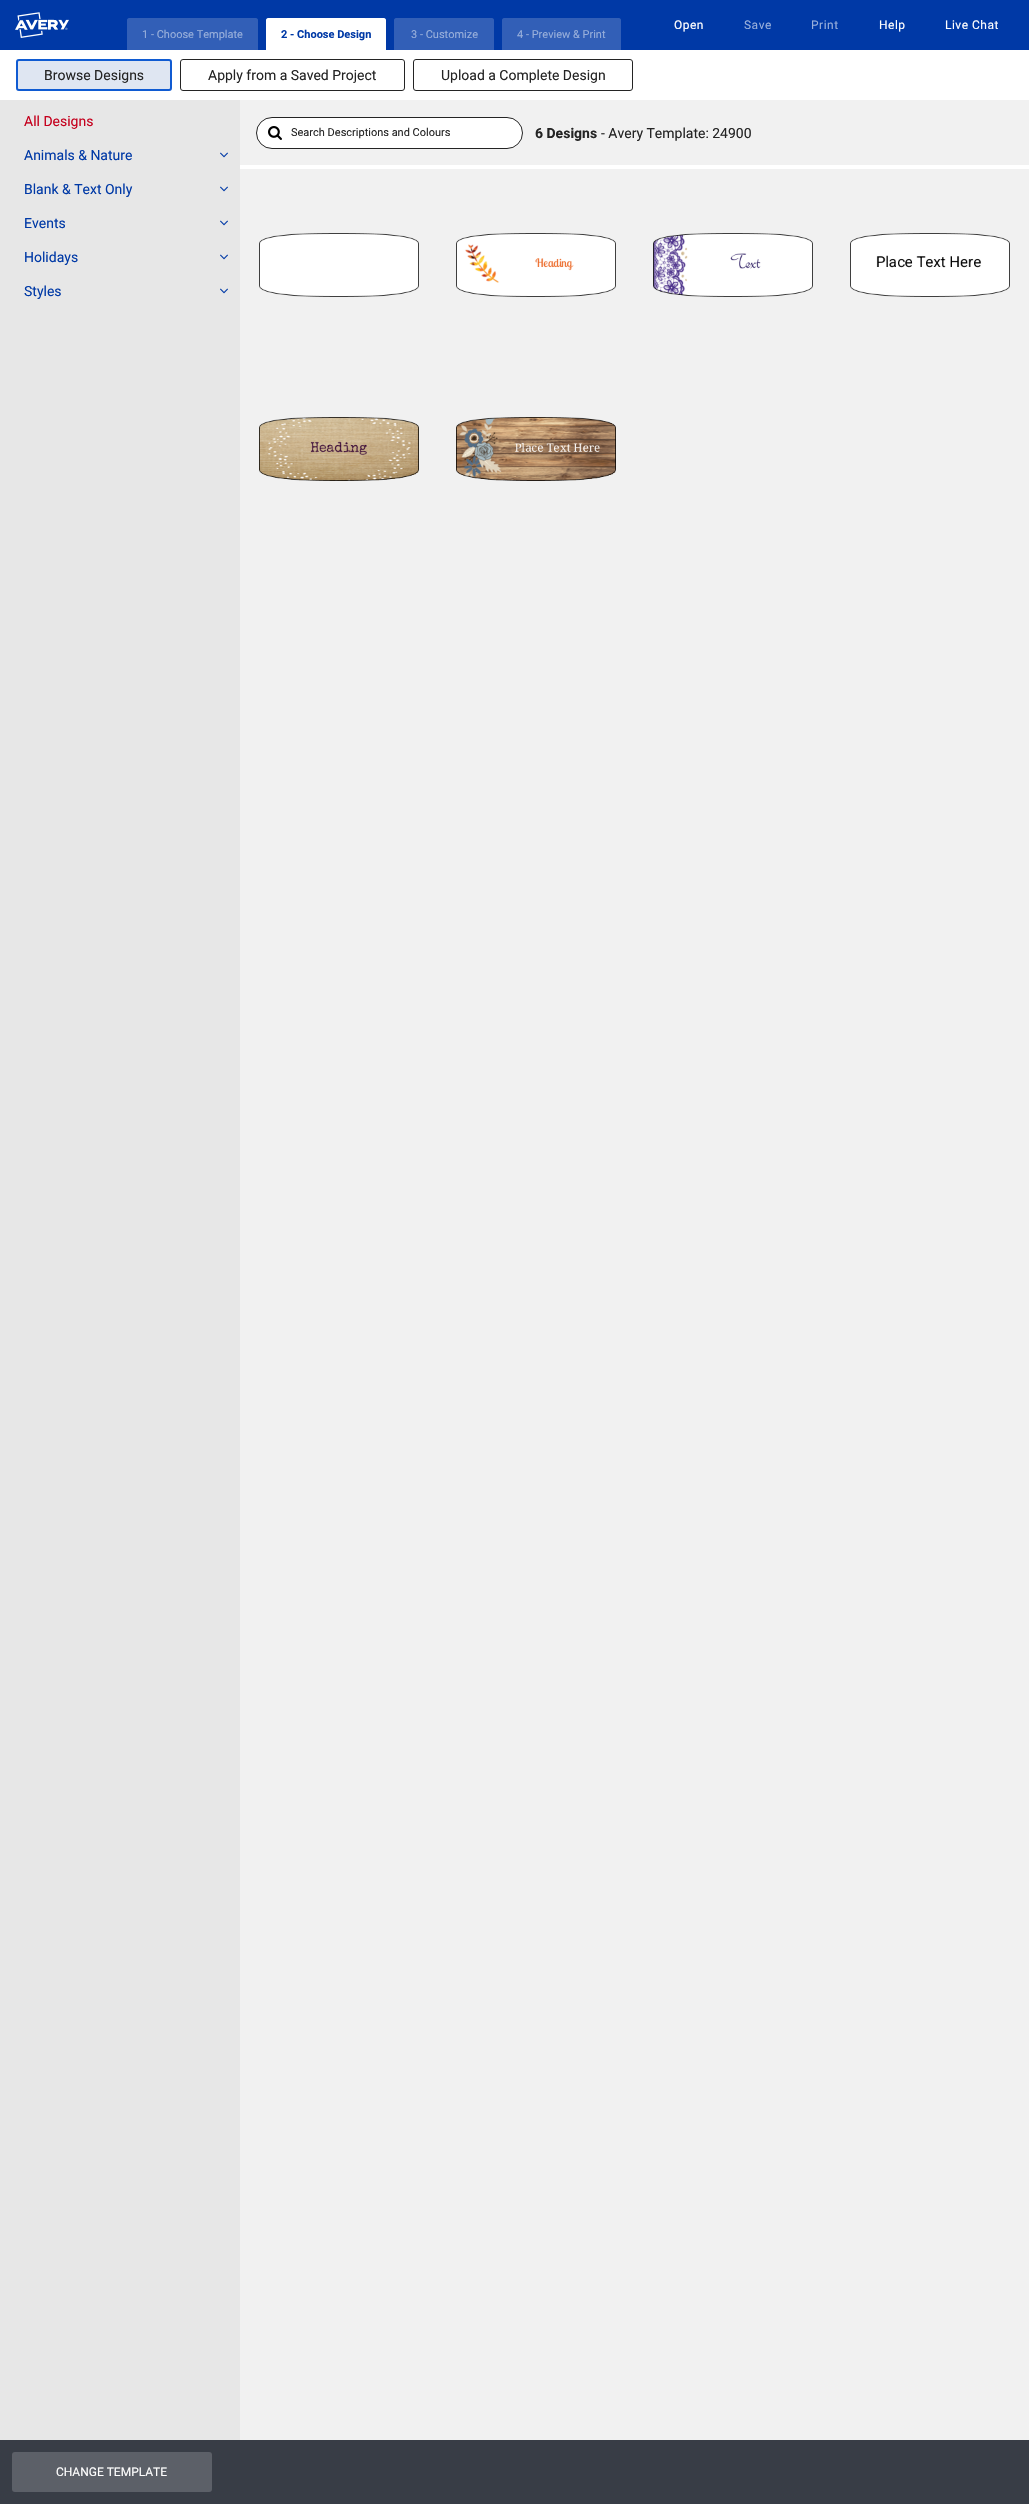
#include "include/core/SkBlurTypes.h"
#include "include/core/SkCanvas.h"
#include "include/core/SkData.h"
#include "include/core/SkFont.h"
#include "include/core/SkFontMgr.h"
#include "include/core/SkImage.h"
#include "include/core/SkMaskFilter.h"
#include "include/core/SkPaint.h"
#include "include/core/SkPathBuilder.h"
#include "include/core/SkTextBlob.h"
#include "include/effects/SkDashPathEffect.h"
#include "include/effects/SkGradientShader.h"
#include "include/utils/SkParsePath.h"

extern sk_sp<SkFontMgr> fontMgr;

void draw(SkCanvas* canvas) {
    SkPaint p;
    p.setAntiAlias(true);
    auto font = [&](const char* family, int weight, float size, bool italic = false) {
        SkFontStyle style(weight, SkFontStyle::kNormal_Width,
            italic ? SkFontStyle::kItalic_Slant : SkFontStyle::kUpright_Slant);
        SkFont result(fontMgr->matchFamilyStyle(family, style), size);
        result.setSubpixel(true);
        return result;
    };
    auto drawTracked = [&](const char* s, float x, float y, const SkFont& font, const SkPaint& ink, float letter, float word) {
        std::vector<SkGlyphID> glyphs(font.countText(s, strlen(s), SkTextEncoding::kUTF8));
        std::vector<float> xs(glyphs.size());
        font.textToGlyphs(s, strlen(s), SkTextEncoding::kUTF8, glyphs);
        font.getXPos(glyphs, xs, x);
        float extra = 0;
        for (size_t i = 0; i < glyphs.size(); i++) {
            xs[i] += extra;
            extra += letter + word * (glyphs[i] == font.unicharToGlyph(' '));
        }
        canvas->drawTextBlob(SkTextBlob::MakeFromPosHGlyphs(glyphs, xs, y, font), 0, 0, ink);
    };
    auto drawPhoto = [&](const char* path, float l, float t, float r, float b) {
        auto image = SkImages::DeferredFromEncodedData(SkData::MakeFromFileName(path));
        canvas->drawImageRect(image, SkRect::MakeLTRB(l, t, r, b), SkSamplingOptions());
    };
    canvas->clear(0xFFFFFFFF);
    p.setColor(0xFF0039A6);
    canvas->drawRect(SkRect::MakeLTRB(0, 0, 1029, 50), p);
    drawPhoto("media/1.png", 15, 12, 69, 38);
    auto font1 = font("Roboto", 400, 12);
    p.setColor(0xFFFFFFFF);
    drawTracked("Open", 674, 29, font1, p, 0.5f, 0);
    p.setColor(0xFF98AFDB);
    drawTracked("Save", 744, 29, font1, p, 0.5f, 0);
    drawTracked("Print", 811, 29, font1, p, 0.5f, 0);
    p.setColor(0xFFFFFFFF);
    drawTracked("Help", 879, 29, font1, p, 0.5f, 0);
    drawTracked("Live Chat", 945, 29, font1, p, 0.5f, 0);
    p.setColor(0xFF325FB7);
    canvas->drawPath(SkPathBuilder().moveTo(129, 18).lineTo(256, 18).cubicTo(257, 18, 258, 19, 258, 20).lineTo(258, 50).lineTo(127, 50).lineTo(127, 20).cubicTo(127, 19, 128, 18, 129, 18).close().detach(), p);
    auto font2 = font("Roboto", 400, 11);
    p.setColor(0xFF98AFDB);
    canvas->drawString("1 - Choose Template", 142, 38, font2, p);
    p.setColor(0xFFFFFFFF);
    canvas->drawPath(SkPathBuilder().moveTo(268, 18).lineTo(384, 18).cubicTo(385, 18, 386, 19, 386, 20).lineTo(386, 51).lineTo(266, 51).lineTo(266, 20).cubicTo(266, 19, 267, 18, 268, 18).close().detach(), p);
    auto font3 = font("Roboto", 700, 11);
    p.setColor(0xFF0039A6);
    canvas->drawString("2 - Choose Design", 281, 38, font3, p);
    p.setColor(0xFF325FB7);
    canvas->drawPath(SkPathBuilder().moveTo(396, 18).lineTo(492, 18).cubicTo(493, 18, 494, 19, 494, 20).lineTo(494, 50).lineTo(394, 50).lineTo(394, 20).cubicTo(394, 19, 395, 18, 396, 18).close().detach(), p);
    p.setColor(0xFF98AFDB);
    canvas->drawString("3 - Customize", 411, 38, font2, p);
    p.setColor(0xFF325FB7);
    canvas->drawPath(SkPathBuilder().moveTo(504, 18).lineTo(619, 18).cubicTo(620, 18, 621, 19, 621, 20).lineTo(621, 50).lineTo(502, 50).lineTo(502, 20).cubicTo(502, 19, 503, 18, 504, 18).close().detach(), p);
    p.setColor(0xFF98AFDB);
    canvas->drawString("4 - Preview & Print", 517, 38, font2, p);
    p.setColor(0xFFDFE6F2);
    canvas->drawRoundRect(SkRect::MakeLTRB(16, 59, 172, 91), 3, 3, p);
    p.setStyle(SkPaint::kStroke_Style);
    p.setStrokeWidth(2);
    p.setColor(0xFF105BD2);
    canvas->drawRoundRect(SkRect::MakeLTRB(17, 60, 171, 90), 2, 2, p);
    auto font4 = font("Roboto", 400, 14);
    p.setStyle(SkPaint::kFill_Style);
    p.setColor(0xFF242424);
    canvas->drawString("Browse Designs", 44, 80, font4, p);
    p.setStyle(SkPaint::kStroke_Style);
    p.setStrokeWidth(1);
    canvas->drawRoundRect(SkRect::MakeLTRB(180.5f, 59.5f, 404.5f, 90.5f), 2.5f, 2.5f, p);
    p.setStyle(SkPaint::kFill_Style);
    canvas->drawString("Apply from a Saved Project", 208, 80, font4, p);
    p.setStyle(SkPaint::kStroke_Style);
    canvas->drawRoundRect(SkRect::MakeLTRB(413.5f, 59.5f, 632.5f, 90.5f), 2.5f, 2.5f, p);
    p.setStyle(SkPaint::kFill_Style);
    canvas->drawString("Upload a Complete Design", 441, 80, font4, p);
    p.setColor(0xFFE7E7E7);
    canvas->drawRect(SkRect::MakeLTRB(0, 100, 240, 2440), p);
    p.setColor(0xFFC5001D);
    canvas->drawString("All Designs", 24, 126, font4, p);
    p.setColor(0xFF0039A6);
    canvas->drawString("Animals & Nature", 24, 160, font4, p);
    drawPhoto("media/2.png", 220, 152, 228, 158);
    canvas->drawString("Blank & Text Only", 24, 194, font4, p);
    drawPhoto("media/2.png", 220, 186, 228, 192);
    canvas->drawString("Events", 24, 228, font4, p);
    drawPhoto("media/2.png", 220, 220, 228, 226);
    canvas->drawString("Holidays", 24, 262, font4, p);
    drawPhoto("media/2.png", 220, 254, 228, 260);
    canvas->drawString("Styles", 24, 296, font4, p);
    drawPhoto("media/2.png", 220, 288, 228, 294);
    p.setColor(0xFFF1F1F1);
    canvas->drawRect(SkRect::MakeLTRB(240, 100, 1029, 165), p);
    p.setColor(0xFFFFFFFF);
    canvas->drawRoundRect(SkRect::MakeLTRB(256.5f, 117.5f, 522.5f, 148.5f), 15.5f, 15.5f, p);
    p.setStyle(SkPaint::kStroke_Style);
    p.setColor(0xFF242424);
    canvas->drawRoundRect(SkRect::MakeLTRB(256.5f, 117.5f, 522.5f, 148.5f), 15.5f, 15.5f, p);
    drawPhoto("media/3.png", 268, 126, 282, 140);
    p.setStyle(SkPaint::kFill_Style);
    canvas->drawString("Search Descriptions and Colours", 291, 136, font2, p);
    auto font5 = font("Roboto", 700, 14);
    canvas->drawString("6 Designs", 535, 138, font5, p);
    canvas->drawString("- Avery Template: 24900", 601, 138, font4, p);
    p.setColor(0xFFF1F1F1);
    canvas->drawRect(SkRect::MakeLTRB(240, 169, 1029, 2440), p);
    drawPhoto("media/4.png", 259, 233, 419, 297);
    drawPhoto("media/5.png", 456, 233, 616, 297);
    drawPhoto("media/6.png", 653, 233, 813, 297);
    drawPhoto("media/7.png", 850, 233, 1010, 297);
    drawPhoto("media/8.png", 259, 417, 419, 481);
    drawPhoto("media/9.png", 456, 417, 616, 481);
    p.setColor(0xFF383D46);
    canvas->drawRect(SkRect::MakeLTRB(0, 2440, 1029, 2504), p);
    p.setColor(0xFF5C6068);
    canvas->drawRoundRect(SkRect::MakeLTRB(12, 2452, 212, 2492), 3, 3, p);
    p.setColor(0xFFFFFFFF);
    canvas->drawString("CHANGE TEMPLATE", 56, 2476, font1, p);
}
